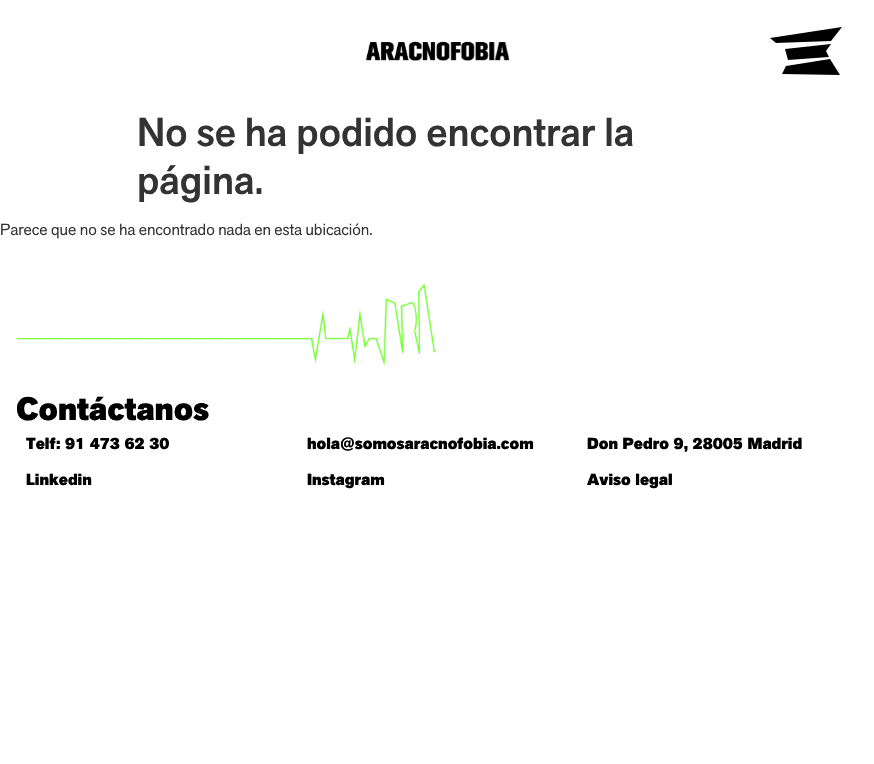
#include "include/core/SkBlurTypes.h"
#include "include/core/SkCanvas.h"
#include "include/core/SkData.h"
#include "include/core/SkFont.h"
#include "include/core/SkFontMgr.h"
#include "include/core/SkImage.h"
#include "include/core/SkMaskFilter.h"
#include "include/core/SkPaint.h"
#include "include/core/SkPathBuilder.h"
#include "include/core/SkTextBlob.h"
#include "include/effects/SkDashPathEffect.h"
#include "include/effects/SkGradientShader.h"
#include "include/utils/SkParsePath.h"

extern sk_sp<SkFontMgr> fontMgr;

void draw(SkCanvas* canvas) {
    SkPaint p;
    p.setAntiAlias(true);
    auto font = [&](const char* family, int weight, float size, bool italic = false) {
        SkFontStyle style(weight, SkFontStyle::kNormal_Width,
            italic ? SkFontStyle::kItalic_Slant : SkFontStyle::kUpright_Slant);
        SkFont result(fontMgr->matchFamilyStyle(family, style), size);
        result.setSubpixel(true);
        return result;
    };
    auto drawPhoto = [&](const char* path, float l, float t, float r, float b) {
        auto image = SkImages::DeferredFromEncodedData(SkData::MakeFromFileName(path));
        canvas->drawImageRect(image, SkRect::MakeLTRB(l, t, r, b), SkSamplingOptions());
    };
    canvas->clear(0xFFFFFFFF);
    drawPhoto("media/1.png", 366, 41, 510, 61);
    p.setColor(0xFF000000);
    canvas->drawPath(SkPathBuilder().moveTo(776, 43).lineTo(831, 41).lineTo(842, 27).lineTo(770, 38).close().detach(), p);
    canvas->drawPath(SkPathBuilder().moveTo(786, 66).lineTo(782, 74).lineTo(840, 75).lineTo(830, 59).close().detach(), p);
    canvas->drawPath(SkPathBuilder().moveTo(826, 51).lineTo(829, 57).lineTo(788, 60).lineTo(785, 49).lineTo(831, 44).close().detach(), p);
    auto font1 = font("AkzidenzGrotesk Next", 500, 40);
    p.setColor(0xFF333333);
    canvas->drawString("No se ha podido encontrar la", 137, 146, font1, p);
    canvas->drawString("página.", 137, 194, font1, p);
    auto font2 = font("AkzidenzGrotesk Next", 400, 16);
    canvas->drawString("Parece que no se ha encontrado nada en esta ubicación.", 0, 235, font2, p);
    drawPhoto("media/2.png", 16, 283, 436, 366);
    auto font3 = font("AkzidenzGrotesk Next", 800, 32);
    p.setColor(0xFF000000);
    canvas->drawString("Contáctanos", 16, 420, font3, p);
    auto font4 = font("AkzidenzGrotesk Next", 800, 16);
    {
        const struct { const char* s; float x, y; } items[] = {
            {"Telf: 91 473 62 30", 26, 449},
            {"Linkedin", 26, 485},
            {"hola@somosaracnofobia.com", 307, 449},
            {"Instagram", 307, 485},
            {"Don Pedro 9, 28005 Madrid", 587, 449},
            {"Aviso legal", 587, 485},
        };
        for (auto [s, x, y] : items) {
            canvas->drawString(s, x, y, font4, p);
        }
    }
}
